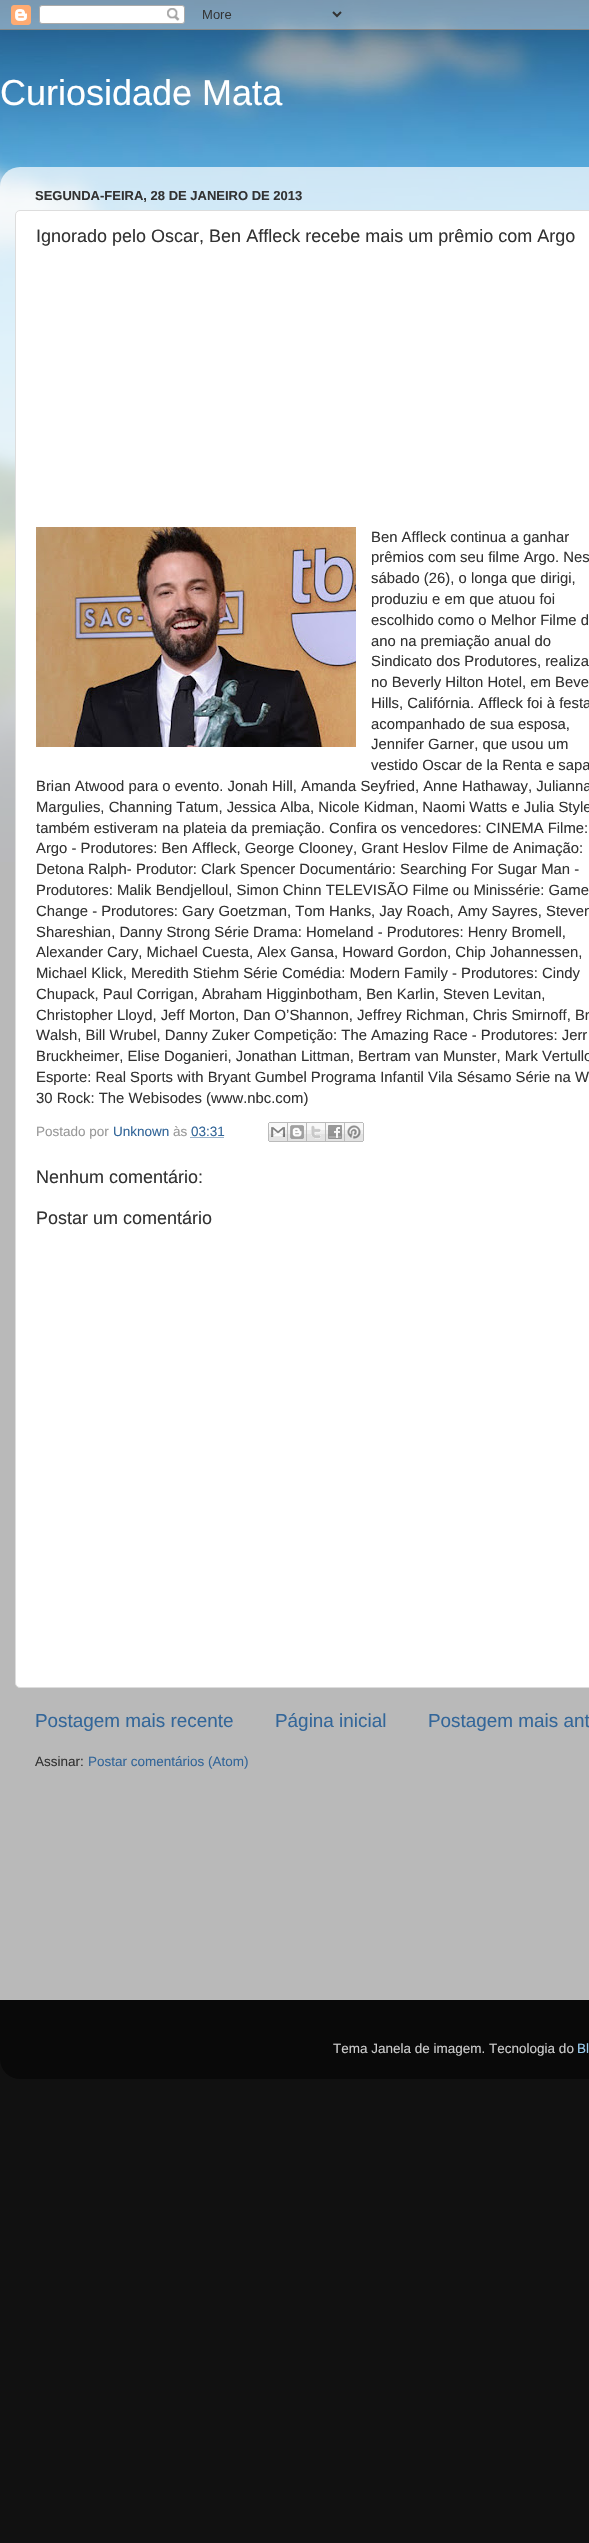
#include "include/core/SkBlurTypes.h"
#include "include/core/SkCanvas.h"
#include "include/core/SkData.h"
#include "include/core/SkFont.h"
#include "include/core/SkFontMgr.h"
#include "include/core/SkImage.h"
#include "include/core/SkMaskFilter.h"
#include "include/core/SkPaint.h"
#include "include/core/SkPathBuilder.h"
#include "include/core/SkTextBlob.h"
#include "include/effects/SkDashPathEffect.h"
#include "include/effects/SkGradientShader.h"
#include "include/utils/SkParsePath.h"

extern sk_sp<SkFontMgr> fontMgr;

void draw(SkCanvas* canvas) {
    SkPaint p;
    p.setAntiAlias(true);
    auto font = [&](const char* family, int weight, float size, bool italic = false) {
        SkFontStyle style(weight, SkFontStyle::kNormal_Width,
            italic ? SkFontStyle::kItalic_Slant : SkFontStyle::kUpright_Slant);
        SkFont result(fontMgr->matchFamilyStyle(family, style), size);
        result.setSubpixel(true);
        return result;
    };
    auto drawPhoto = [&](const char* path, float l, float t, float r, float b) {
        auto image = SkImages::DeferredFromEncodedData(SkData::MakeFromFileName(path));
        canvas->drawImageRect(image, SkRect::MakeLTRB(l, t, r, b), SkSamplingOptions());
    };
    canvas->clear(0xFF111111);
    drawPhoto("media/1.png", 0, 0, 589, 862);
    drawPhoto("media/2.png", 0, 0, 589, 30);
    auto font1 = font("Liberation Sans", 400, 36);
    p.setColor(0xFFFFFFFF);
    canvas->drawString("Curiosidade Mata", 0, 105, font1, p);
    drawPhoto("media/3.png", 0, 167, 589, 2000);
    auto font2 = font("Liberation Sans", 700, 13);
    p.setColor(0xFF333333);
    canvas->drawString("SEGUNDA-FEIRA, 28 DE JANEIRO DE 2013", 35, 200, font2, p);
    p.setColor(0xFFFFFFFF);
    canvas->drawRoundRect(SkRect::MakeLTRB(15.5f, 210.5f, 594.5f, 1687.5f), 4.5f, 4.5f, p);
    p.setStyle(SkPaint::kStroke_Style);
    p.setStrokeWidth(1);
    p.setColor(0xFFDDDDDD);
    canvas->drawRoundRect(SkRect::MakeLTRB(15.5f, 210.5f, 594.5f, 1687.5f), 4.5f, 4.5f, p);
    auto font3 = font("Liberation Sans", 400, 18);
    p.setStyle(SkPaint::kFill_Style);
    p.setColor(0xFF333333);
    canvas->drawString("Ignorado pelo Oscar, Ben Affleck recebe mais um prêmio com Argo", 36, 242, font3, p);
    drawPhoto("media/4.png", 36, 527, 356, 747);
    auto font4 = font("Liberation Sans", 400, 14.85f);
    {
        const struct { const char* s; float x, y; } items[] = {
            {"Ben Affleck continua a ganhar", 371, 542},
            {"prêmios com seu filme Argo. Nes", 371, 562},
            {"sábado (26), o longa que dirigi,", 371, 583},
            {"produziu e em que atuou foi", 371, 604},
            {"escolhido como o Melhor Filme d", 371, 625},
            {"ano na premiação anual do", 371, 646},
            {"Sindicato dos Produtores, realiza", 371, 666},
            {"no Beverly Hilton Hotel, em Beve", 371, 687},
            {"Hills, Califórnia. Affleck foi à festa", 371, 708},
            {"acompanhado de sua esposa,", 371, 729},
            {"Jennifer Garner, que usou um", 371, 749},
            {"vestido Oscar de la Renta e sapa", 371, 770},
            {"Brian Atwood para o evento. Jonah Hill, Amanda Seyfried, Anne Hathaway, Julianna", 36, 791},
            {"Margulies, Channing Tatum, Jessica Alba, Nicole Kidman, Naomi Watts e Julia Style", 36, 812},
            {"também estiveram na plateia da premiação. Confira os vencedores: CINEMA Filme:", 36, 833},
            {"Argo - Produtores: Ben Affleck, George Clooney, Grant Heslov Filme de Animação:", 36, 853},
            {"Detona Ralph- Produtor: Clark Spencer Documentário: Searching For Sugar Man -", 36, 874},
            {"Produtores: Malik Bendjelloul, Simon Chinn TELEVISÃO Filme ou Minissérie: Game", 36, 895},
            {"Change - Produtores: Gary Goetzman, Tom Hanks, Jay Roach, Amy Sayres, Steven", 36, 916},
            {"Shareshian, Danny Strong Série Drama: Homeland - Produtores: Henry Bromell,", 36, 937},
            {"Alexander Cary, Michael Cuesta, Alex Gansa, Howard Gordon, Chip Johannessen,", 36, 957},
            {"Michael Klick, Meredith Stiehm Série Comédia: Modern Family - Produtores: Cindy", 36, 978},
            {"Chupack, Paul Corrigan, Abraham Higginbotham, Ben Karlin, Steven Levitan,", 36, 999},
            {"Christopher Lloyd, Jeff Morton, Dan O’Shannon, Jeffrey Richman, Chris Smirnoff, Br", 36, 1020},
            {"Walsh, Bill Wrubel, Danny Zuker Competição: The Amazing Race - Produtores: Jerr", 36, 1040},
            {"Bruckheimer, Elise Doganieri, Jonathan Littman, Bertram van Munster, Mark Vertullo", 36, 1061},
            {"Esporte: Real Sports with Bryant Gumbel Programa Infantil Vila Sésamo Série na W", 36, 1082},
            {"30 Rock: The Webisodes (www.nbc.com)", 36, 1103},
        };
        for (auto [s, x, y] : items) {
            canvas->drawString(s, x, y, font4, p);
        }
    }
    auto font5 = font("Liberation Sans", 400, 13.5f);
    p.setColor(0xFF999999);
    canvas->drawString("Postado por", 36, 1136, font5, p);
    p.setColor(0xFF336699);
    canvas->drawString("Unknown", 113, 1136, font5, p);
    p.setColor(0xFF999999);
    canvas->drawString("às", 173, 1136, font5, p);
    p.setColor(0xFF336699);
    canvas->drawString("03:31", 191, 1136, font5, p);
    p.setStyle(SkPaint::kStroke_Style);
    p.setPathEffect(SkDashPathEffect::Make({{1, 1}}, 0));
    canvas->drawPath(SkPathBuilder().moveTo(190.5f, 1137.5f).lineTo(224.5f, 1137.5f).detach(), p);
    p.setPathEffect(nullptr);
    drawPhoto("media/5.png", 268, 1122, 288, 1142);
    drawPhoto("media/6.png", 288, 1122, 307, 1142);
    drawPhoto("media/7.png", 307, 1122, 326, 1142);
    drawPhoto("media/8.png", 326, 1122, 345, 1142);
    drawPhoto("media/9.png", 345, 1122, 364, 1142);
    p.setStyle(SkPaint::kFill_Style);
    p.setColor(0xFF333333);
    canvas->drawString("Nenhum comentário:", 36, 1183, font3, p);
    canvas->drawString("Postar um comentário", 36, 1224, font3, p);
    auto font6 = font("Liberation Sans", 400, 18.9f);
    p.setColor(0xFF336699);
    {
        const struct { const char* s; float x, y; } items[] = {
            {"Postagem mais recente", 35, 1727},
            {"Página inicial", 275, 1727},
            {"Postagem mais ant", 428, 1727},
        };
        for (auto [s, x, y] : items) {
            canvas->drawString(s, x, y, font6, p);
        }
    }
    p.setColor(0xFF333333);
    canvas->drawString("Assinar:", 35, 1766, font5, p);
    p.setColor(0xFF336699);
    canvas->drawString("Postar comentários (Atom)", 88, 1766, font5, p);
    drawPhoto("media/10.png", 0, 2000, 589, 2079);
    p.setColor(0xFFCCCCCC);
    canvas->drawString("Tema Janela de imagem. Tecnologia do", 333, 2053, font5, p);
    p.setColor(0xFF99CCEE);
    canvas->drawString("Bl", 577, 2053, font5, p);
}
